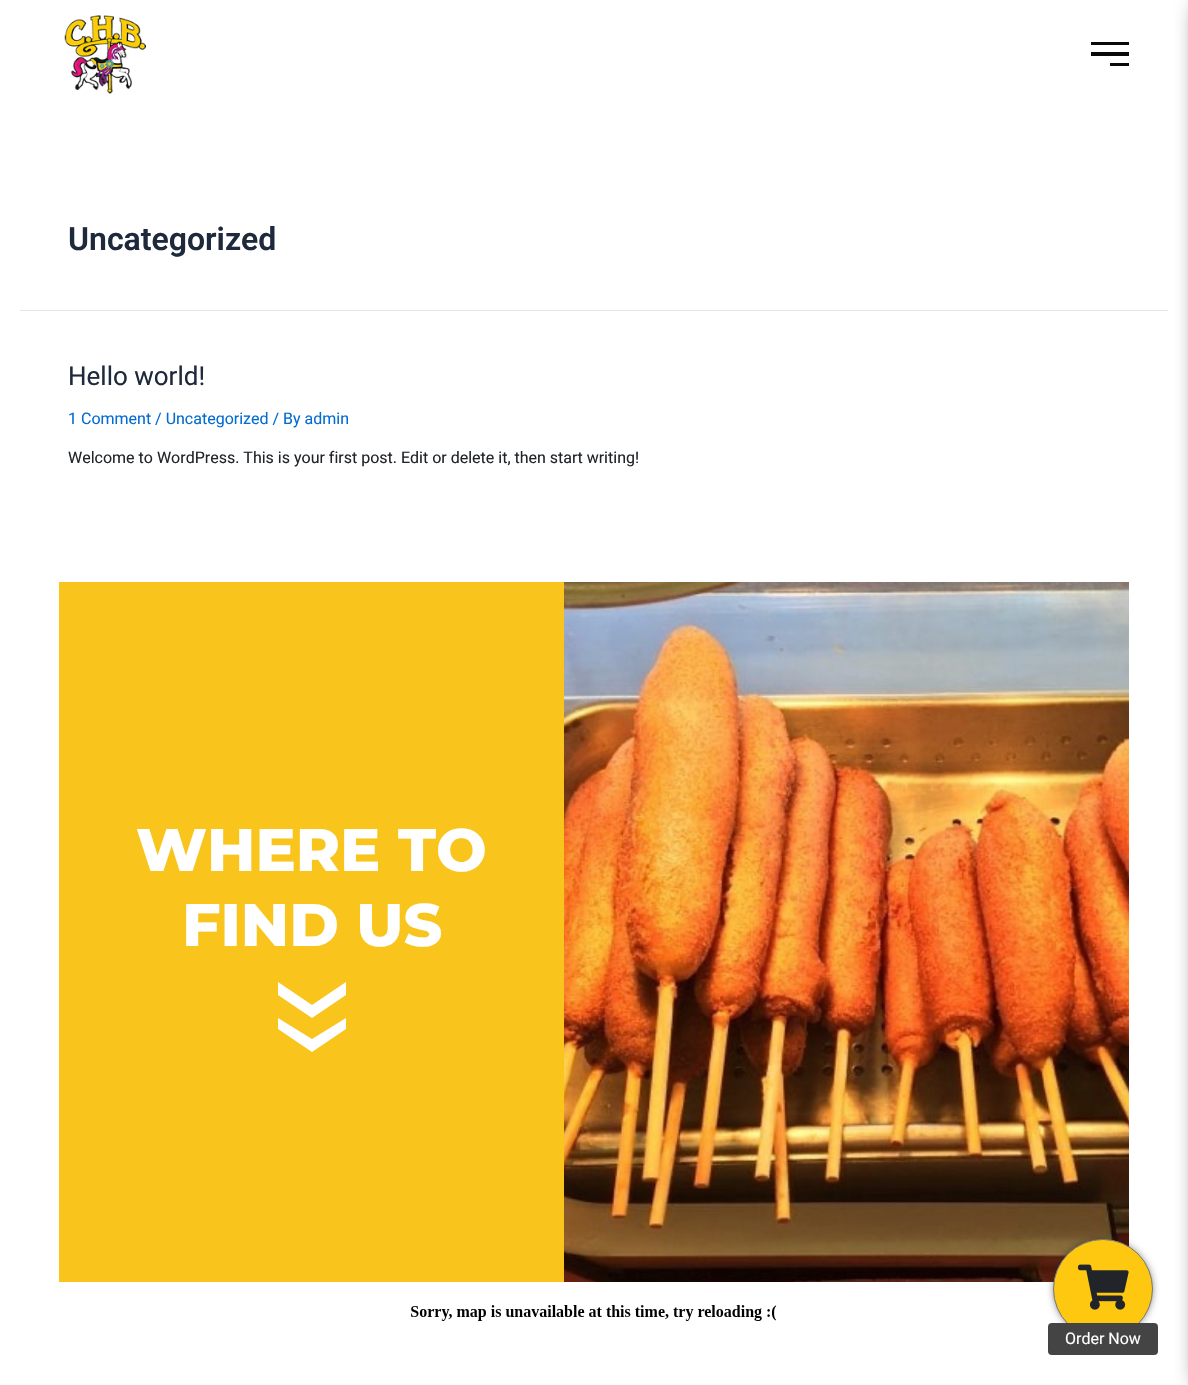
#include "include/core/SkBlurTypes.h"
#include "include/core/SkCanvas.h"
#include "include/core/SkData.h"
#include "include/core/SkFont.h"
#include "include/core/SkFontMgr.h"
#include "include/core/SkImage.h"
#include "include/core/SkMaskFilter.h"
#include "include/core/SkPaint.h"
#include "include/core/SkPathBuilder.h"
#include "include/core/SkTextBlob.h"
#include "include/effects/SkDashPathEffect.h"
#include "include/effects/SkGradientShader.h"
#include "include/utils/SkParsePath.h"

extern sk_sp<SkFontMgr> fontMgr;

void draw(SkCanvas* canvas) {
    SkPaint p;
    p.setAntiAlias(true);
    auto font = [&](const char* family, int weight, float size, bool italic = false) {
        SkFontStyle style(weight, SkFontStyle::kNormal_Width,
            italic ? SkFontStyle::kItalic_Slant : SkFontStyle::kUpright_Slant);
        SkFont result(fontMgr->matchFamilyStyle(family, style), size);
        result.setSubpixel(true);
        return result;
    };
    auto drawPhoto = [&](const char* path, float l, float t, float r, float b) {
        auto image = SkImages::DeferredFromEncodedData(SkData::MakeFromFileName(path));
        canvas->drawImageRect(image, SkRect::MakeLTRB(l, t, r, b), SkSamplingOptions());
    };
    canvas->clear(0xFFFFFFFF);
    drawPhoto("media/1.png", 64, 15, 146, 94);
    {
        const struct { float l, t, r, b; SkColor color; } items[] = {
            {1091, 42, 1129, 45, 0xFF090909},
            {1091, 52, 1129, 56, 0xFF090909},
            {1110, 63, 1129, 66, 0xFF090909},
            {20, 310, 1168, 311, 0xFFE2E8F0},
        };
        for (auto [l, t, r, b, color] : items) {
            p.setColor(color);
            canvas->drawRect(SkRect::MakeLTRB(l, t, r, b), p);
        }
    }
    auto font1 = font("Roboto", 600, 32);
    p.setColor(0xFF1E293B);
    canvas->drawString("Uncategorized", 68, 250, font1, p);
    auto font2 = font("Roboto", 400, 26);
    canvas->drawString("Hello world!", 68, 385, font2, p);
    auto font3 = font("Roboto", 400, 16);
    p.setColor(0xFF046BD2);
    canvas->drawString("1 Comment / Uncategorized / By admin", 68, 424, font3, p);
    p.setColor(0xFF212529);
    canvas->drawString("Welcome to WordPress. This is your first post. Edit or delete it, then start writing!", 68, 463, font3, p);
    p.setColor(0xFFF9C41C);
    canvas->drawRect(SkRect::MakeLTRB(59, 582, 564, 1282), p);
    auto font4 = font("Montserrat", 800, 60);
    p.setColor(0xFFFFFFFF);
    canvas->drawString("WHERE TO", 136, 871, font4, p);
    canvas->drawString("FIND US", 182, 946, font4, p);
    canvas->drawPath(SkPathBuilder().moveTo(278, 1018).lineTo(278, 1029).lineTo(312, 1052).lineTo(346, 1029).lineTo(346, 1018).lineTo(312, 1039).close().detach(), p);
    canvas->drawPath(SkPathBuilder().moveTo(312, 1018).lineTo(346, 995).lineTo(346, 982).lineTo(312, 1005).lineTo(278, 982).lineTo(278, 995).close().detach(), p);
    drawPhoto("media/2.png", 564, 582, 1129, 1282);
    drawPhoto("media/3.png", 411, 1305, 777, 1321);
    p.setColor(0xFF222222);
    p.setMaskFilter(SkMaskFilter::MakeBlur(kNormal_SkBlurStyle, 5));
    canvas->drawRoundRect(SkRect::MakeLTRB(1056, 1242, 1150, 1336), 47, 47, p);
    p.setMaskFilter(nullptr);
    p.setColor(0xFFFEC810);
    canvas->drawCircle(1103, 1289, 49.5f, p);
    p.setStyle(SkPaint::kStroke_Style);
    p.setStrokeWidth(1);
    p.setColor(0xFF777777);
    canvas->drawCircle(1103, 1289, 49.5f, p);
    drawPhoto("media/4.png", 1078, 1264, 1129, 1310);
    p.setStyle(SkPaint::kFill_Style);
    p.setColor(0xFF444444);
    canvas->drawRoundRect(SkRect::MakeLTRB(1048, 1323, 1158, 1355), 4, 4, p);
    p.setColor(0xFFFFFFFF);
    canvas->drawString("Order Now", 1065, 1344, font3, p);
    p.setColor(0xFF000000);
    p.setMaskFilter(SkMaskFilter::MakeBlur(kNormal_SkBlurStyle, 12.5f));
    canvas->drawRect(SkRect::MakeLTRB(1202, 6, 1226, 1383), p);
    p.setMaskFilter(nullptr);
}
